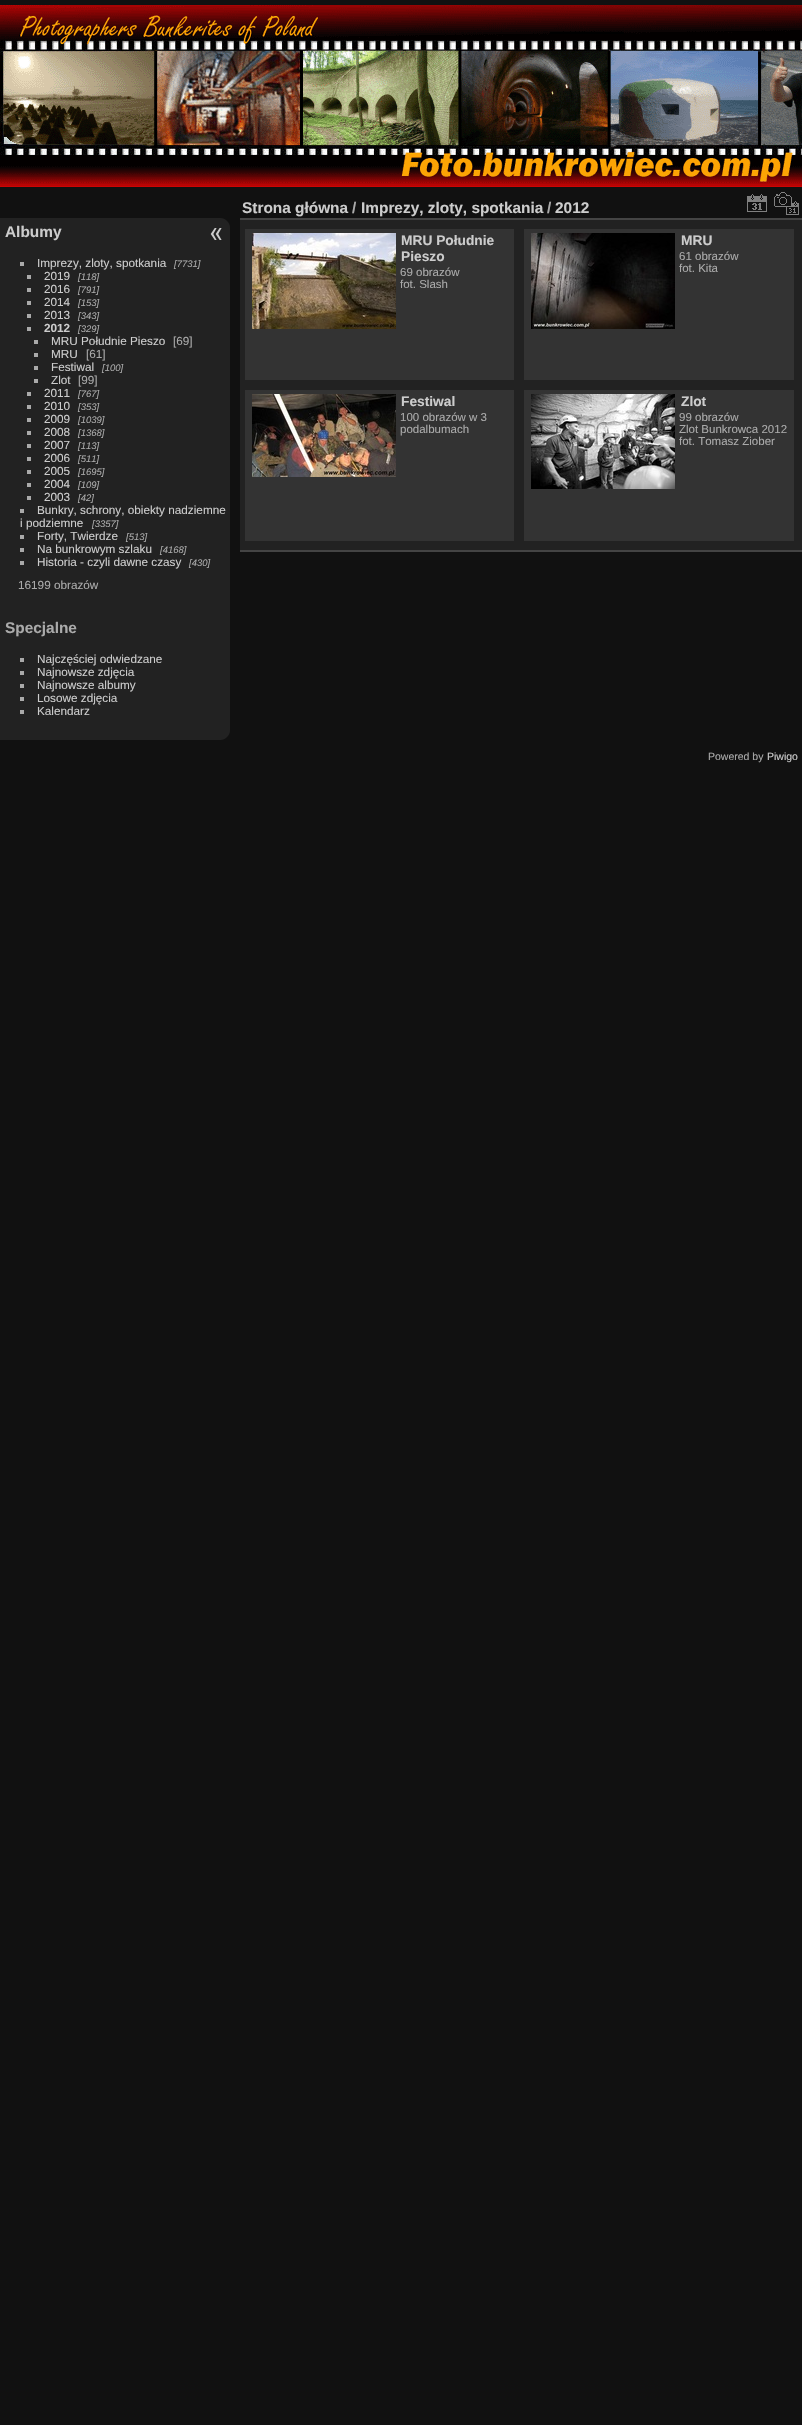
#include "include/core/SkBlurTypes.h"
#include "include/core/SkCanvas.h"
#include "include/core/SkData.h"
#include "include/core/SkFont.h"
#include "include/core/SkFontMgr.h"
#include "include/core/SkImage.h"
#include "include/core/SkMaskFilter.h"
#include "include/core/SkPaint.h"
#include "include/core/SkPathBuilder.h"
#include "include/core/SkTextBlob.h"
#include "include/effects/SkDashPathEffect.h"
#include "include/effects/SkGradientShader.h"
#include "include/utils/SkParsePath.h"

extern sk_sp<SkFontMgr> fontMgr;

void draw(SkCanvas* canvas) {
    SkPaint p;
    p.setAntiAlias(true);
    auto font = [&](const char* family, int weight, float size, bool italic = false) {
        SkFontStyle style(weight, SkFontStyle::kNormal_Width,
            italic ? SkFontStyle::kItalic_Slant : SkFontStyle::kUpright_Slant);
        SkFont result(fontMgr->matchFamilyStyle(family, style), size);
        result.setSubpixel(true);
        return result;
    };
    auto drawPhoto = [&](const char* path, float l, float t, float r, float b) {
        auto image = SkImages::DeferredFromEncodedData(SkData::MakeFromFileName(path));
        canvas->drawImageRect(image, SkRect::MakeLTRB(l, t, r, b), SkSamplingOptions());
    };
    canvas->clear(0xFF111111);
    drawPhoto("media/1.png", 0, 5, 802, 187);
    p.setColor(0xFF222222);
    canvas->drawPath(SkPathBuilder().moveTo(0, 218).lineTo(220, 218).cubicTo(225.5f, 218, 230, 222.5f, 230, 228).lineTo(230, 730).cubicTo(230, 735.5f, 225.5f, 740, 220, 740).lineTo(0, 740).close().detach(), p);
    auto font1 = font("Liberation Sans", 700, 15.4f);
    p.setColor(0xFFCCCCCC);
    canvas->drawString("Albumy", 5, 237, font1, p);
    p.setColor(0xFFAAAAAA);
    canvas->drawRect(SkRect::MakeLTRB(20, 262, 24, 266), p);
    auto font2 = font("Liberation Sans", 400, 11.75f);
    p.setColor(0xFFCCCCCC);
    canvas->drawString("Imprezy, zloty, spotkania", 37, 267, font2, p);
    auto font3 = font("Liberation Sans", 400, 9.5f, true);
    p.setColor(0xFFAAAAAA);
    canvas->drawString("[7731]", 174, 267, font3, p);
    canvas->drawRect(SkRect::MakeLTRB(27, 275, 31, 279), p);
    p.setColor(0xFFCCCCCC);
    canvas->drawString("2019", 44, 280, font2, p);
    p.setColor(0xFFAAAAAA);
    canvas->drawString("[118]", 78, 280, font3, p);
    canvas->drawRect(SkRect::MakeLTRB(27, 288, 31, 292), p);
    p.setColor(0xFFCCCCCC);
    canvas->drawString("2016", 44, 293, font2, p);
    p.setColor(0xFFAAAAAA);
    canvas->drawString("[791]", 78, 293, font3, p);
    canvas->drawRect(SkRect::MakeLTRB(27, 301, 31, 305), p);
    p.setColor(0xFFCCCCCC);
    canvas->drawString("2014", 44, 306, font2, p);
    p.setColor(0xFFAAAAAA);
    canvas->drawString("[153]", 78, 306, font3, p);
    canvas->drawRect(SkRect::MakeLTRB(27, 314, 31, 318), p);
    p.setColor(0xFFCCCCCC);
    canvas->drawString("2013", 44, 319, font2, p);
    p.setColor(0xFFAAAAAA);
    canvas->drawString("[343]", 78, 319, font3, p);
    canvas->drawRect(SkRect::MakeLTRB(27, 327, 31, 331), p);
    auto font4 = font("Liberation Sans", 700, 11.75f);
    p.setColor(0xFFCCCCCC);
    canvas->drawString("2012", 44, 332, font4, p);
    p.setColor(0xFFAAAAAA);
    canvas->drawString("[329]", 78, 332, font3, p);
    canvas->drawRect(SkRect::MakeLTRB(34, 340, 38, 344), p);
    p.setColor(0xFFCCCCCC);
    canvas->drawString("MRU Południe Pieszo", 51, 345, font2, p);
    p.setColor(0xFFAAAAAA);
    canvas->drawString("[69]", 173, 345, font2, p);
    canvas->drawRect(SkRect::MakeLTRB(34, 353, 38, 357), p);
    p.setColor(0xFFCCCCCC);
    canvas->drawString("MRU", 51, 358, font2, p);
    p.setColor(0xFFAAAAAA);
    canvas->drawString("[61]", 86, 358, font2, p);
    canvas->drawRect(SkRect::MakeLTRB(34, 366, 38, 370), p);
    p.setColor(0xFFCCCCCC);
    canvas->drawString("Festiwal", 51, 371, font2, p);
    p.setColor(0xFFAAAAAA);
    canvas->drawString("[100]", 102, 371, font3, p);
    canvas->drawRect(SkRect::MakeLTRB(34, 379, 38, 383), p);
    p.setColor(0xFFCCCCCC);
    canvas->drawString("Zlot", 51, 384, font2, p);
    p.setColor(0xFFAAAAAA);
    canvas->drawString("[99]", 78, 384, font2, p);
    canvas->drawRect(SkRect::MakeLTRB(27, 392, 31, 396), p);
    p.setColor(0xFFCCCCCC);
    canvas->drawString("2011", 44, 397, font2, p);
    p.setColor(0xFFAAAAAA);
    canvas->drawString("[767]", 78, 397, font3, p);
    canvas->drawRect(SkRect::MakeLTRB(27, 405, 31, 409), p);
    p.setColor(0xFFCCCCCC);
    canvas->drawString("2010", 44, 410, font2, p);
    p.setColor(0xFFAAAAAA);
    canvas->drawString("[353]", 78, 410, font3, p);
    canvas->drawRect(SkRect::MakeLTRB(27, 418, 31, 422), p);
    p.setColor(0xFFCCCCCC);
    canvas->drawString("2009", 44, 423, font2, p);
    p.setColor(0xFFAAAAAA);
    canvas->drawString("[1039]", 78, 423, font3, p);
    canvas->drawRect(SkRect::MakeLTRB(27, 431, 31, 435), p);
    p.setColor(0xFFCCCCCC);
    canvas->drawString("2008", 44, 436, font2, p);
    p.setColor(0xFFAAAAAA);
    canvas->drawString("[1368]", 78, 436, font3, p);
    canvas->drawRect(SkRect::MakeLTRB(27, 444, 31, 448), p);
    p.setColor(0xFFCCCCCC);
    canvas->drawString("2007", 44, 449, font2, p);
    p.setColor(0xFFAAAAAA);
    canvas->drawString("[113]", 78, 449, font3, p);
    canvas->drawRect(SkRect::MakeLTRB(27, 457, 31, 461), p);
    p.setColor(0xFFCCCCCC);
    canvas->drawString("2006", 44, 462, font2, p);
    p.setColor(0xFFAAAAAA);
    canvas->drawString("[511]", 78, 462, font3, p);
    canvas->drawRect(SkRect::MakeLTRB(27, 470, 31, 474), p);
    p.setColor(0xFFCCCCCC);
    canvas->drawString("2005", 44, 475, font2, p);
    p.setColor(0xFFAAAAAA);
    canvas->drawString("[1695]", 78, 475, font3, p);
    canvas->drawRect(SkRect::MakeLTRB(27, 483, 31, 487), p);
    p.setColor(0xFFCCCCCC);
    canvas->drawString("2004", 44, 488, font2, p);
    p.setColor(0xFFAAAAAA);
    canvas->drawString("[109]", 78, 488, font3, p);
    canvas->drawRect(SkRect::MakeLTRB(27, 496, 31, 500), p);
    p.setColor(0xFFCCCCCC);
    canvas->drawString("2003", 44, 501, font2, p);
    p.setColor(0xFFAAAAAA);
    canvas->drawString("[42]", 78, 501, font3, p);
    canvas->drawRect(SkRect::MakeLTRB(20, 509, 24, 513), p);
    p.setColor(0xFFCCCCCC);
    canvas->drawString("Bunkry, schrony, obiekty nadziemne", 37, 514, font2, p);
    canvas->drawString("i podziemne", 20, 527, font2, p);
    p.setColor(0xFFAAAAAA);
    canvas->drawString("[3357]", 92, 527, font3, p);
    canvas->drawRect(SkRect::MakeLTRB(20, 535, 24, 539), p);
    p.setColor(0xFFCCCCCC);
    canvas->drawString("Forty, Twierdze", 37, 540, font2, p);
    p.setColor(0xFFAAAAAA);
    canvas->drawString("[513]", 126, 540, font3, p);
    canvas->drawRect(SkRect::MakeLTRB(20, 548, 24, 552), p);
    p.setColor(0xFFCCCCCC);
    canvas->drawString("Na bunkrowym szlaku", 37, 553, font2, p);
    p.setColor(0xFFAAAAAA);
    canvas->drawString("[4168]", 160, 553, font3, p);
    canvas->drawRect(SkRect::MakeLTRB(20, 561, 24, 565), p);
    p.setColor(0xFFCCCCCC);
    canvas->drawString("Historia - czyli dawne czasy", 37, 566, font2, p);
    p.setColor(0xFFAAAAAA);
    canvas->drawString("[430]", 189, 566, font3, p);
    canvas->drawString("16199 obrazów", 18, 589, font2, p);
    canvas->drawString("Specjalne", 5, 633, font1, p);
    canvas->drawRect(SkRect::MakeLTRB(20, 658, 24, 662), p);
    p.setColor(0xFFCCCCCC);
    canvas->drawString("Najczęściej odwiedzane", 37, 663, font2, p);
    p.setColor(0xFFAAAAAA);
    canvas->drawRect(SkRect::MakeLTRB(20, 671, 24, 675), p);
    p.setColor(0xFFCCCCCC);
    canvas->drawString("Najnowsze zdjęcia", 37, 676, font2, p);
    p.setColor(0xFFAAAAAA);
    canvas->drawRect(SkRect::MakeLTRB(20, 684, 24, 688), p);
    p.setColor(0xFFCCCCCC);
    canvas->drawString("Najnowsze albumy", 37, 689, font2, p);
    p.setColor(0xFFAAAAAA);
    canvas->drawRect(SkRect::MakeLTRB(20, 697, 24, 701), p);
    p.setColor(0xFFCCCCCC);
    canvas->drawString("Losowe zdjęcia", 37, 702, font2, p);
    p.setColor(0xFFAAAAAA);
    canvas->drawRect(SkRect::MakeLTRB(20, 710, 24, 714), p);
    p.setColor(0xFFCCCCCC);
    canvas->drawString("Kalendarz", 37, 715, font2, p);
    {
        const struct { float l, t, r, b; SkColor color; } items[] = {
            {240, 220, 802, 550, 0xFF222222},
            {240, 550, 802, 552, 0xFF444444},
            {240, 218, 802, 220, 0xFF444444},
        };
        for (auto [l, t, r, b, color] : items) {
            p.setColor(color);
            canvas->drawRect(SkRect::MakeLTRB(l, t, r, b), p);
        }
    }
    p.setColor(0xFFCCCCCC);
    canvas->drawString("Strona główna", 242, 213, font1, p);
    p.setColor(0xFFAAAAAA);
    canvas->drawString("/", 352, 213, font1, p);
    p.setColor(0xFFCCCCCC);
    canvas->drawString("Imprezy, zloty, spotkania", 361, 213, font1, p);
    p.setColor(0xFFAAAAAA);
    canvas->drawString("/", 547, 213, font1, p);
    p.setColor(0xFFCCCCCC);
    canvas->drawString("2012", 555, 213, font1, p);
    drawPhoto("media/2.png", 747, 194, 767, 212);
    drawPhoto("media/3.png", 774, 192, 799, 215);
    p.setColor(0xFF333333);
    canvas->drawRect(SkRect::MakeLTRB(245, 229, 514, 380), p);
    drawPhoto("media/4.png", 252, 233, 396, 329);
    auto font5 = font("Liberation Sans", 700, 13.75f);
    p.setColor(0xFFCCCCCC);
    canvas->drawString("MRU Południe", 401, 245, font5, p);
    canvas->drawString("Pieszo", 401, 261, font5, p);
    auto font6 = font("Liberation Sans", 400, 11.5f);
    p.setColor(0xFFAAAAAA);
    canvas->drawString("69 obrazów", 400, 276, font6, p);
    canvas->drawString("fot. Slash", 400, 288, font6, p);
    p.setColor(0xFF333333);
    canvas->drawRect(SkRect::MakeLTRB(524, 229, 794, 380), p);
    drawPhoto("media/5.png", 531, 233, 675, 329);
    p.setColor(0xFFCCCCCC);
    canvas->drawString("MRU", 681, 245, font5, p);
    p.setColor(0xFFAAAAAA);
    canvas->drawString("61 obrazów", 679, 260, font6, p);
    canvas->drawString("fot. Kita", 679, 272, font6, p);
    p.setColor(0xFF333333);
    canvas->drawRect(SkRect::MakeLTRB(245, 390, 514, 541), p);
    drawPhoto("media/6.png", 252, 394, 396, 477);
    p.setColor(0xFFCCCCCC);
    canvas->drawString("Festiwal", 401, 406, font5, p);
    p.setColor(0xFFAAAAAA);
    canvas->drawString("100 obrazów w 3", 400, 421, font6, p);
    canvas->drawString("podalbumach", 400, 433, font6, p);
    p.setColor(0xFF333333);
    canvas->drawRect(SkRect::MakeLTRB(524, 390, 794, 541), p);
    drawPhoto("media/7.png", 531, 394, 675, 489);
    p.setColor(0xFFCCCCCC);
    canvas->drawString("Zlot", 681, 406, font5, p);
    p.setColor(0xFFAAAAAA);
    {
        const struct { const char* s; float x, y; } items[] = {
            {"99 obrazów", 679, 421},
            {"Zlot Bunkrowca 2012", 679, 433},
            {"fot. Tomasz Ziober", 679, 445},
        };
        for (auto [s, x, y] : items) {
            canvas->drawString(s, x, y, font6, p);
        }
    }
    drawPhoto("media/8.png", 210, 228, 222, 240);
    auto font7 = font("Liberation Sans", 400, 10.5f);
    canvas->drawString("Powered by", 708, 760, font7, p);
    p.setColor(0xFFCCCCCC);
    canvas->drawString("Piwigo", 767, 760, font7, p);
}
